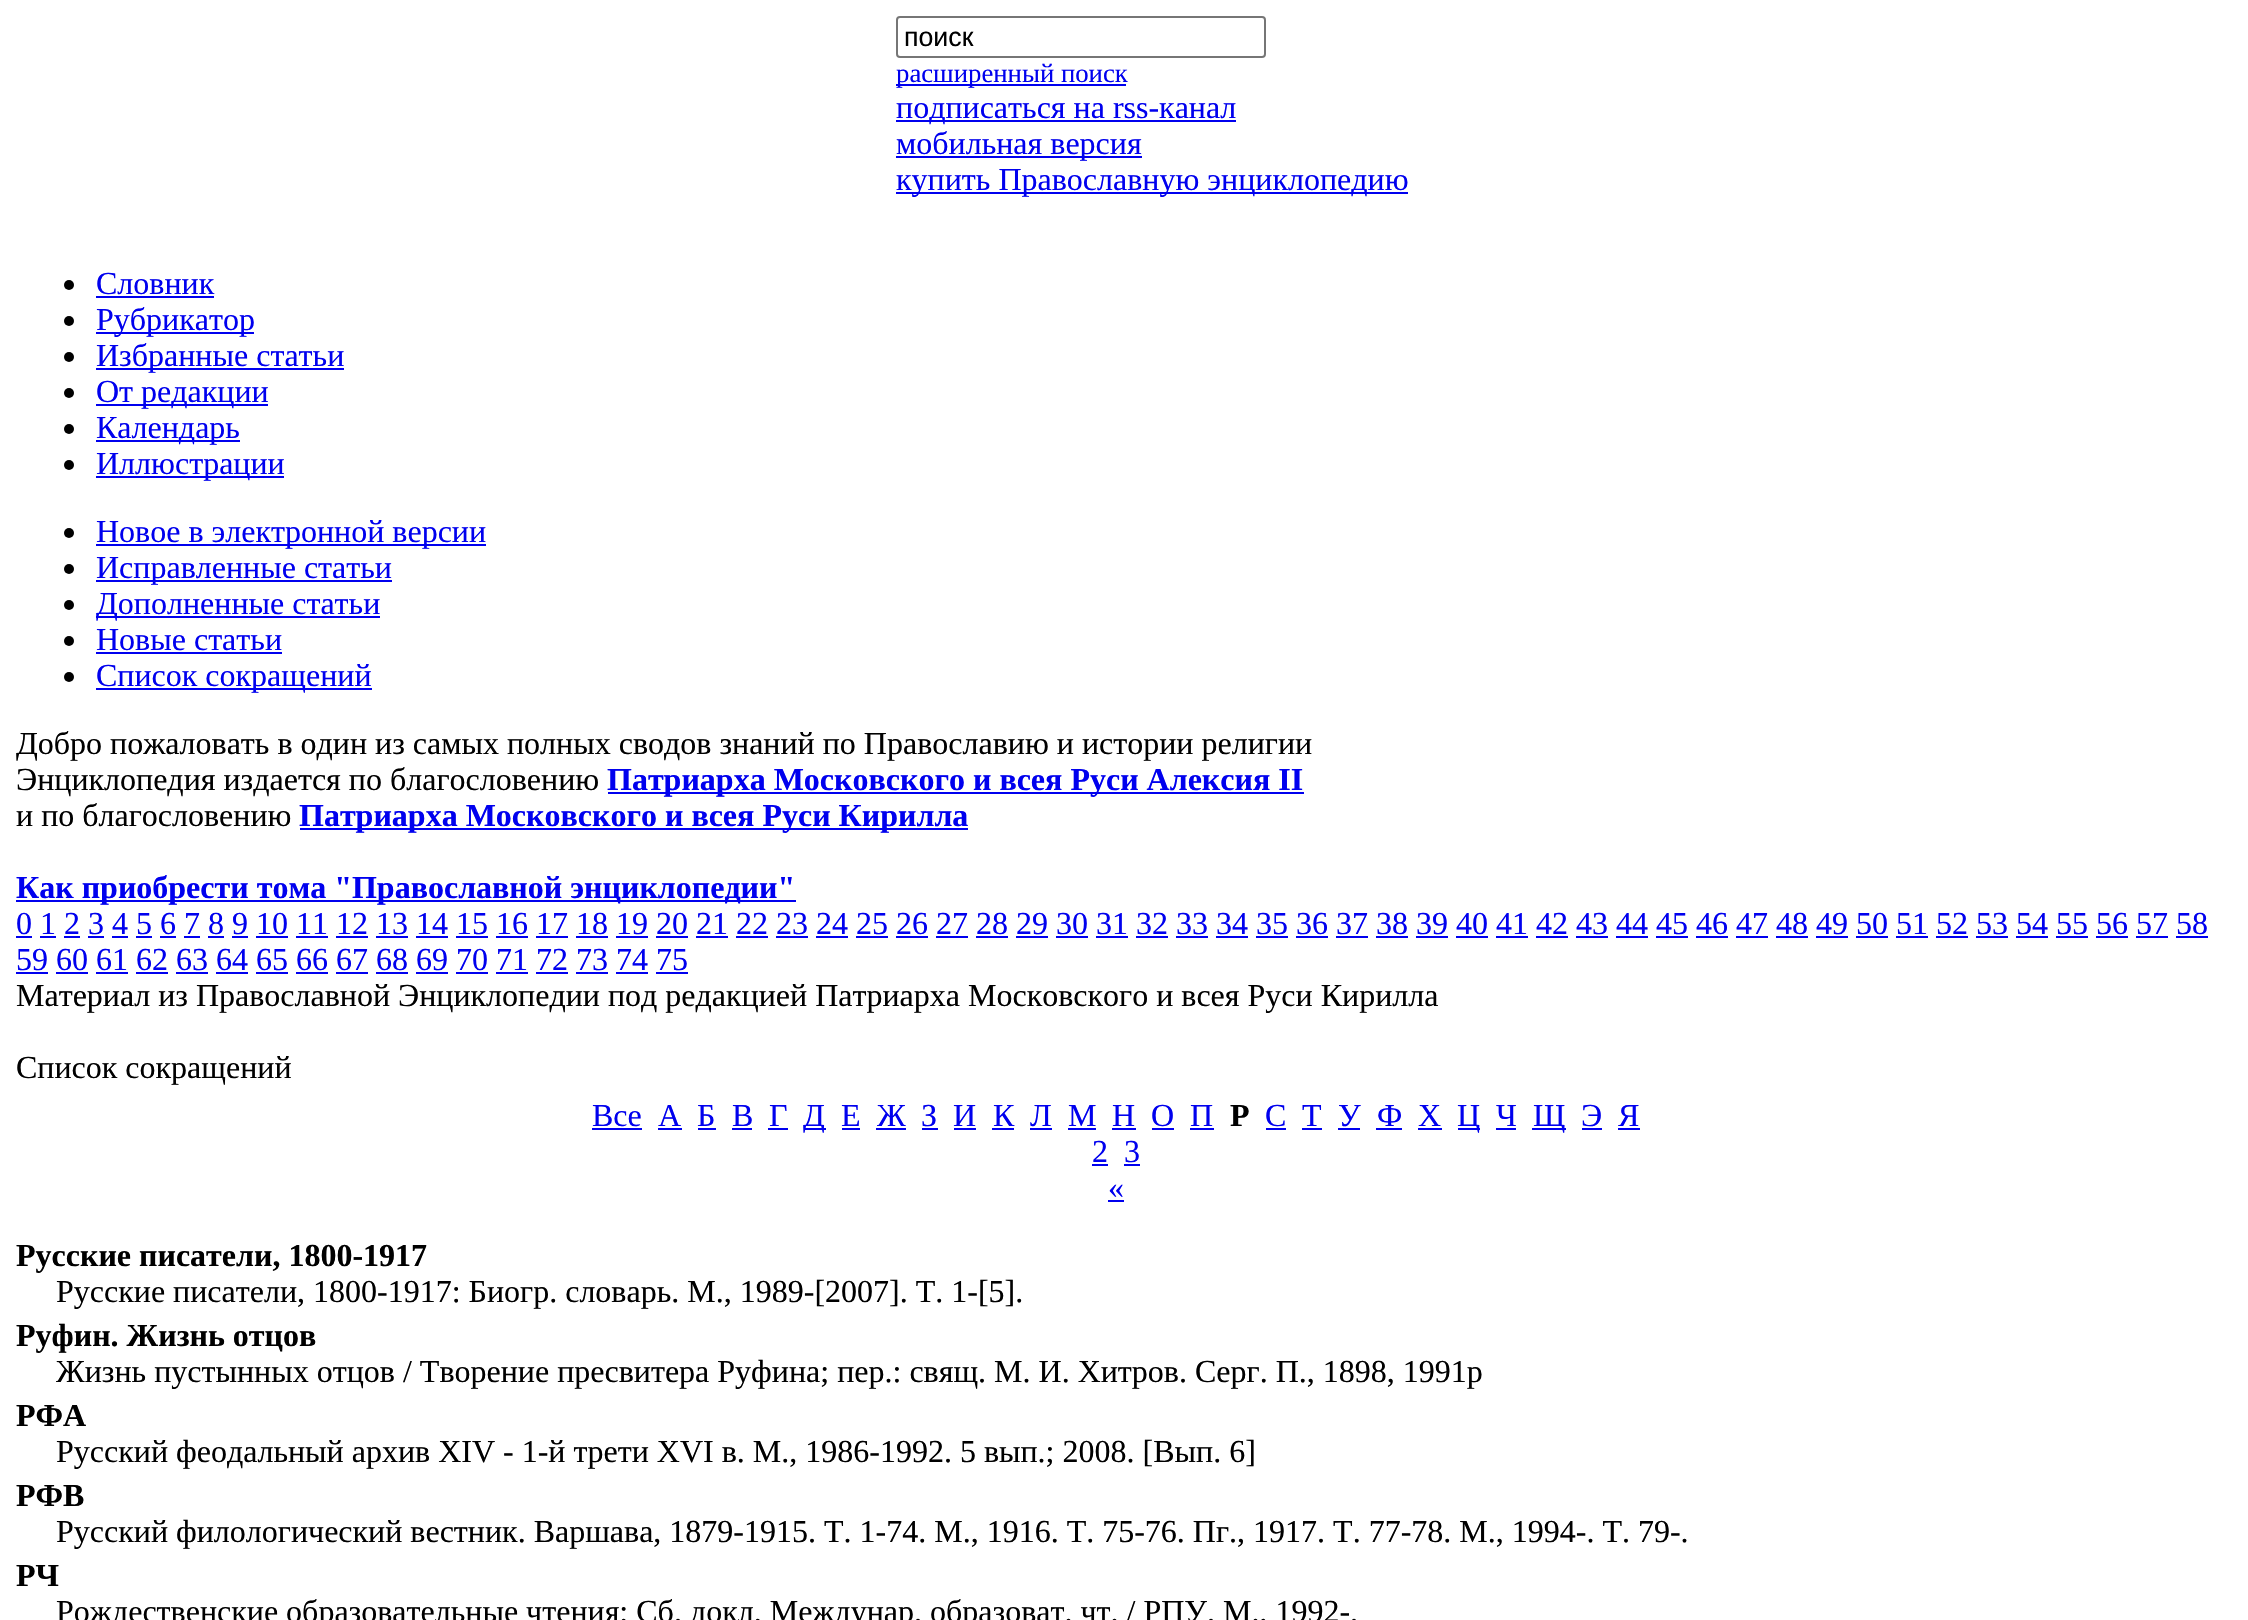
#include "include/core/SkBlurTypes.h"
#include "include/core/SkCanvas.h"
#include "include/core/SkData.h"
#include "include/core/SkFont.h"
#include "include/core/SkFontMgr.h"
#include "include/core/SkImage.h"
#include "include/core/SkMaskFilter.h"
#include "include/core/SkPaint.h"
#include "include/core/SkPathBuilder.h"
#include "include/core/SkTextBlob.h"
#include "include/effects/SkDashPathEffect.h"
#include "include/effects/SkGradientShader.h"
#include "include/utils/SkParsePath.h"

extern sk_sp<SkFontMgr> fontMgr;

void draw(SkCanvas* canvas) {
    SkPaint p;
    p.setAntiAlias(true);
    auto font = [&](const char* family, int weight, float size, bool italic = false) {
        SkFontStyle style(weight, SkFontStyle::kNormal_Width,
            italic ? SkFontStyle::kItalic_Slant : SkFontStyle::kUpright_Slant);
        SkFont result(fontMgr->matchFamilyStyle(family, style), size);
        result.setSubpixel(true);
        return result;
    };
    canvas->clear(0xFFFFFFFF);
    p.setStyle(SkPaint::kStroke_Style);
    p.setStrokeWidth(2);
    p.setColor(0xFF767676);
    canvas->drawRoundRect(SkRect::MakeLTRB(897, 17, 1265, 57), 3, 3, p);
    auto font1 = font("Liberation Sans", 400, 26.75f);
    p.setStyle(SkPaint::kFill_Style);
    p.setColor(0xFF000000);
    canvas->drawString("поиск", 904, 46, font1, p);
    p.setColor(0xFF0000EE);
    canvas->drawRect(SkRect::MakeLTRB(896, 84, 1126, 86), p);
    auto font2 = font("Liberation Serif", 400, 26.75f);
    canvas->drawString("расширенный поиск", 896, 82, font2, p);
    canvas->drawRect(SkRect::MakeLTRB(896, 120, 1236, 122), p);
    auto font3 = font("Liberation Serif", 400, 32);
    canvas->drawString("подписаться на rss-канал", 896, 118, font3, p);
    canvas->drawRect(SkRect::MakeLTRB(896, 156, 1142, 158), p);
    canvas->drawString("мобильная версия", 896, 154, font3, p);
    canvas->drawRect(SkRect::MakeLTRB(896, 192, 1408, 194), p);
    canvas->drawString("купить Православную энциклопедию", 896, 190, font3, p);
    p.setColor(0xFF000000);
    canvas->drawCircle(69, 285, 5, p);
    p.setColor(0xFF0000EE);
    canvas->drawString("Словник", 96, 294, font3, p);
    canvas->drawRect(SkRect::MakeLTRB(96, 296, 214, 298), p);
    p.setColor(0xFF000000);
    canvas->drawCircle(69, 321, 5, p);
    p.setColor(0xFF0000EE);
    canvas->drawRect(SkRect::MakeLTRB(96, 332, 254, 334), p);
    canvas->drawString("Рубрикатор", 96, 330, font3, p);
    p.setColor(0xFF000000);
    canvas->drawCircle(69, 357, 5, p);
    p.setColor(0xFF0000EE);
    canvas->drawRect(SkRect::MakeLTRB(96, 368, 344, 370), p);
    canvas->drawString("Избранные статьи", 96, 366, font3, p);
    p.setColor(0xFF000000);
    canvas->drawCircle(69, 393, 5, p);
    p.setColor(0xFF0000EE);
    canvas->drawRect(SkRect::MakeLTRB(96, 404, 268, 406), p);
    canvas->drawString("От редакции", 96, 402, font3, p);
    p.setColor(0xFF000000);
    canvas->drawCircle(69, 429, 5, p);
    p.setColor(0xFF0000EE);
    canvas->drawRect(SkRect::MakeLTRB(96, 440, 240, 442), p);
    canvas->drawString("Календарь", 96, 438, font3, p);
    p.setColor(0xFF000000);
    canvas->drawCircle(69, 465, 5, p);
    p.setColor(0xFF0000EE);
    canvas->drawRect(SkRect::MakeLTRB(96, 476, 284, 478), p);
    canvas->drawString("Иллюстрации", 96, 474, font3, p);
    p.setColor(0xFF000000);
    canvas->drawCircle(69, 533, 5, p);
    p.setColor(0xFF0000EE);
    canvas->drawRect(SkRect::MakeLTRB(96, 544, 486, 546), p);
    canvas->drawString("Новое в электронной версии", 96, 542, font3, p);
    p.setColor(0xFF000000);
    canvas->drawCircle(69, 569, 5, p);
    p.setColor(0xFF0000EE);
    canvas->drawRect(SkRect::MakeLTRB(96, 580, 392, 582), p);
    canvas->drawString("Исправленные статьи", 96, 578, font3, p);
    p.setColor(0xFF000000);
    canvas->drawCircle(69, 605, 5, p);
    p.setColor(0xFF0000EE);
    canvas->drawRect(SkRect::MakeLTRB(96, 616, 380, 618), p);
    canvas->drawString("Дополненные статьи", 96, 614, font3, p);
    p.setColor(0xFF000000);
    canvas->drawCircle(69, 641, 5, p);
    p.setColor(0xFF0000EE);
    canvas->drawString("Новые статьи", 96, 650, font3, p);
    canvas->drawRect(SkRect::MakeLTRB(96, 652, 282, 654), p);
    p.setColor(0xFF000000);
    canvas->drawCircle(69, 677, 5, p);
    p.setColor(0xFF0000EE);
    canvas->drawRect(SkRect::MakeLTRB(96, 688, 372, 690), p);
    canvas->drawString("Список сокращений", 96, 686, font3, p);
    p.setColor(0xFF000000);
    canvas->drawString("Добро пожаловать в один из самых полных сводов знаний по Православию и истории религии", 16, 754, font3, p);
    canvas->drawString("Энциклопедия издается по благословению", 16, 790, font3, p);
    p.setColor(0xFF0000EE);
    canvas->drawRect(SkRect::MakeLTRB(608, 792, 1304, 794), p);
    auto font4 = font("Liberation Serif", 700, 32);
    canvas->drawString("Патриарха Московского и всея Руси Алексия II", 607, 790, font4, p);
    p.setColor(0xFF000000);
    canvas->drawString("и по благословению", 16, 826, font3, p);
    p.setColor(0xFF0000EE);
    canvas->drawRect(SkRect::MakeLTRB(300, 828, 968, 830), p);
    canvas->drawString("Патриарха Московского и всея Руси Кирилла", 299, 826, font4, p);
    canvas->drawRect(SkRect::MakeLTRB(16, 900, 796, 902), p);
    canvas->drawString("Как приобрести тома \"Православной энциклопедии\"", 16, 898, font4, p);
    canvas->drawString("0 1 2 3 4 5 6 7 8 9 10 11 12 13 14 15 16 17 18 19 20 21 22 23 24 25 26 27 28 29 30 31 32 33 34 35 36 37 38 39 40 41 42 43 44 45 46 47 48 49 50 51 52 53 54 55 56 57 58", 16, 934, font3, p);
    {
        const struct { float l, t, r, b; SkColor color; } items[] = {
            {16, 936, 32, 938, 0xFF0000EE},
            {40, 936, 56, 938, 0xFF0000EE},
            {64, 936, 80, 938, 0xFF0000EE},
            {88, 936, 104, 938, 0xFF0000EE},
            {112, 936, 128, 938, 0xFF0000EE},
            {136, 936, 152, 938, 0xFF0000EE},
            {160, 936, 176, 938, 0xFF0000EE},
            {184, 936, 200, 938, 0xFF0000EE},
            {208, 936, 224, 938, 0xFF0000EE},
            {232, 936, 248, 938, 0xFF0000EE},
            {256, 936, 288, 938, 0xFF0000EE},
            {296, 936, 328, 938, 0xFF0000EE},
            {336, 936, 368, 938, 0xFF0000EE},
            {376, 936, 408, 938, 0xFF0000EE},
            {416, 936, 448, 938, 0xFF0000EE},
            {456, 936, 488, 938, 0xFF0000EE},
            {496, 936, 528, 938, 0xFF0000EE},
            {536, 936, 568, 938, 0xFF0000EE},
            {576, 936, 608, 938, 0xFF0000EE},
            {616, 936, 648, 938, 0xFF0000EE},
            {656, 936, 688, 938, 0xFF0000EE},
            {696, 936, 728, 938, 0xFF0000EE},
            {736, 936, 768, 938, 0xFF0000EE},
            {776, 936, 808, 938, 0xFF0000EE},
            {816, 936, 848, 938, 0xFF0000EE},
            {856, 936, 888, 938, 0xFF0000EE},
            {896, 936, 928, 938, 0xFF0000EE},
            {936, 936, 968, 938, 0xFF0000EE},
            {976, 936, 1008, 938, 0xFF0000EE},
            {1016, 936, 1048, 938, 0xFF0000EE},
            {1056, 936, 1088, 938, 0xFF0000EE},
            {1096, 936, 1128, 938, 0xFF0000EE},
            {1136, 936, 1168, 938, 0xFF0000EE},
            {1176, 936, 1208, 938, 0xFF0000EE},
            {1216, 936, 1248, 938, 0xFF0000EE},
            {1256, 936, 1288, 938, 0xFF0000EE},
            {1296, 936, 1328, 938, 0xFF0000EE},
            {1336, 936, 1368, 938, 0xFF0000EE},
            {1376, 936, 1408, 938, 0xFF0000EE},
            {1416, 936, 1448, 938, 0xFF0000EE},
            {1456, 936, 1488, 938, 0xFF0000EE},
            {1496, 936, 1528, 938, 0xFF0000EE},
            {1536, 936, 1568, 938, 0xFF0000EE},
            {1576, 936, 1608, 938, 0xFF0000EE},
            {1616, 936, 1648, 938, 0xFF0000EE},
            {1656, 936, 1688, 938, 0xFF0000EE},
            {1696, 936, 1728, 938, 0xFF0000EE},
            {1736, 936, 1768, 938, 0xFF0000EE},
            {1776, 936, 1808, 938, 0xFF0000EE},
            {1816, 936, 1848, 938, 0xFF0000EE},
            {1856, 936, 1888, 938, 0xFF0000EE},
            {1896, 936, 1928, 938, 0xFF0000EE},
            {1936, 936, 1968, 938, 0xFF0000EE},
            {1976, 936, 2008, 938, 0xFF0000EE},
            {2016, 936, 2048, 938, 0xFF0000EE},
            {2056, 936, 2088, 938, 0xFF0000EE},
            {2096, 936, 2128, 938, 0xFF0000EE},
            {2136, 936, 2168, 938, 0xFF0000EE},
            {2176, 936, 2208, 938, 0xFF0000EE},
        };
        for (auto [l, t, r, b, color] : items) {
            p.setColor(color);
            canvas->drawRect(SkRect::MakeLTRB(l, t, r, b), p);
        }
    }
    canvas->drawString("59 60 61 62 63 64 65 66 67 68 69 70 71 72 73 74 75", 16, 970, font3, p);
    {
        const struct { float l, t, r, b; SkColor color; } items[] = {
            {16, 972, 48, 974, 0xFF0000EE},
            {56, 972, 88, 974, 0xFF0000EE},
            {96, 972, 128, 974, 0xFF0000EE},
            {136, 972, 168, 974, 0xFF0000EE},
            {176, 972, 208, 974, 0xFF0000EE},
            {216, 972, 248, 974, 0xFF0000EE},
            {256, 972, 288, 974, 0xFF0000EE},
            {296, 972, 328, 974, 0xFF0000EE},
            {336, 972, 368, 974, 0xFF0000EE},
            {376, 972, 408, 974, 0xFF0000EE},
            {416, 972, 448, 974, 0xFF0000EE},
            {456, 972, 488, 974, 0xFF0000EE},
            {496, 972, 528, 974, 0xFF0000EE},
            {536, 972, 568, 974, 0xFF0000EE},
            {576, 972, 608, 974, 0xFF0000EE},
            {616, 972, 648, 974, 0xFF0000EE},
            {656, 972, 688, 974, 0xFF0000EE},
        };
        for (auto [l, t, r, b, color] : items) {
            p.setColor(color);
            canvas->drawRect(SkRect::MakeLTRB(l, t, r, b), p);
        }
    }
    p.setColor(0xFF000000);
    canvas->drawString("Материал из Православной Энциклопедии под редакцией Патриарха Московского и всея Руси Кирилла", 16, 1006, font3, p);
    canvas->drawString("Список сокращений", 16, 1078, font3, p);
    p.setColor(0xFF0000EE);
    canvas->drawString("Все", 592, 1126, font3, p);
    canvas->drawRect(SkRect::MakeLTRB(592, 1128, 642, 1130), p);
    canvas->drawString("А", 658, 1126, font3, p);
    canvas->drawRect(SkRect::MakeLTRB(658, 1128, 682, 1130), p);
    canvas->drawString("Б", 697, 1126, font3, p);
    canvas->drawRect(SkRect::MakeLTRB(698, 1128, 716, 1130), p);
    canvas->drawString("В", 732, 1126, font3, p);
    canvas->drawRect(SkRect::MakeLTRB(732, 1128, 752, 1130), p);
    canvas->drawString("Г", 769, 1126, font3, p);
    canvas->drawRect(SkRect::MakeLTRB(768, 1128, 788, 1130), p);
    canvas->drawRect(SkRect::MakeLTRB(804, 1128, 826, 1130), p);
    canvas->drawString("Д", 803, 1126, font3, p);
    canvas->drawString("Е", 841, 1126, font3, p);
    canvas->drawRect(SkRect::MakeLTRB(842, 1128, 860, 1130), p);
    canvas->drawString("Ж", 877, 1126, font3, p);
    canvas->drawRect(SkRect::MakeLTRB(876, 1128, 906, 1130), p);
    canvas->drawString("З", 921, 1126, font3, p);
    canvas->drawRect(SkRect::MakeLTRB(922, 1128, 938, 1130), p);
    canvas->drawString("И", 953, 1126, font3, p);
    canvas->drawRect(SkRect::MakeLTRB(954, 1128, 976, 1130), p);
    canvas->drawString("К", 993, 1126, font3, p);
    canvas->drawRect(SkRect::MakeLTRB(992, 1128, 1014, 1130), p);
    canvas->drawString("Л", 1030, 1126, font3, p);
    canvas->drawRect(SkRect::MakeLTRB(1030, 1128, 1052, 1130), p);
    canvas->drawString("М", 1068, 1126, font3, p);
    canvas->drawRect(SkRect::MakeLTRB(1068, 1128, 1096, 1130), p);
    canvas->drawString("Н", 1112, 1126, font3, p);
    canvas->drawRect(SkRect::MakeLTRB(1112, 1128, 1136, 1130), p);
    canvas->drawString("О", 1151, 1126, font3, p);
    canvas->drawRect(SkRect::MakeLTRB(1152, 1128, 1174, 1130), p);
    canvas->drawString("П", 1190, 1126, font3, p);
    canvas->drawRect(SkRect::MakeLTRB(1190, 1128, 1214, 1130), p);
    p.setColor(0xFF000000);
    canvas->drawString("Р", 1230, 1126, font4, p);
    p.setColor(0xFF0000EE);
    canvas->drawString("С", 1265, 1126, font3, p);
    canvas->drawRect(SkRect::MakeLTRB(1266, 1128, 1286, 1130), p);
    canvas->drawString("Т", 1302, 1126, font3, p);
    canvas->drawRect(SkRect::MakeLTRB(1302, 1128, 1322, 1130), p);
    canvas->drawString("У", 1338, 1126, font3, p);
    canvas->drawRect(SkRect::MakeLTRB(1338, 1128, 1360, 1130), p);
    canvas->drawString("Ф", 1377, 1126, font3, p);
    canvas->drawRect(SkRect::MakeLTRB(1376, 1128, 1402, 1130), p);
    canvas->drawString("Х", 1418, 1126, font3, p);
    canvas->drawRect(SkRect::MakeLTRB(1418, 1128, 1442, 1130), p);
    canvas->drawRect(SkRect::MakeLTRB(1458, 1128, 1480, 1130), p);
    canvas->drawString("Ц", 1457, 1126, font3, p);
    canvas->drawString("Ч", 1496, 1126, font3, p);
    canvas->drawRect(SkRect::MakeLTRB(1496, 1128, 1516, 1130), p);
    canvas->drawRect(SkRect::MakeLTRB(1532, 1128, 1566, 1130), p);
    canvas->drawString("Щ", 1533, 1126, font3, p);
    canvas->drawString("Э", 1581, 1126, font3, p);
    canvas->drawRect(SkRect::MakeLTRB(1582, 1128, 1602, 1130), p);
    canvas->drawString("Я", 1618, 1126, font3, p);
    canvas->drawRect(SkRect::MakeLTRB(1618, 1128, 1640, 1130), p);
    canvas->drawString("2", 1092, 1162, font3, p);
    canvas->drawRect(SkRect::MakeLTRB(1092, 1164, 1108, 1166), p);
    canvas->drawString("3", 1124, 1162, font3, p);
    canvas->drawRect(SkRect::MakeLTRB(1124, 1164, 1140, 1166), p);
    canvas->drawString("«", 1108, 1198, font3, p);
    canvas->drawRect(SkRect::MakeLTRB(1108, 1200, 1124, 1202), p);
    p.setColor(0xFF000000);
    canvas->drawString("Русские писатели, 1800-1917", 16, 1266, font4, p);
    canvas->drawString("Русские писатели, 1800-1917: Биогр. словарь. М., 1989-[2007]. Т. 1-[5].", 56, 1302, font3, p);
    canvas->drawString("Руфин. Жизнь отцов", 16, 1346, font4, p);
    canvas->drawString("Жизнь пустынных отцов / Творение пресвитера Руфина; пер.: свящ. М. И. Хитров. Серг. П., 1898, 1991р", 56, 1382, font3, p);
    canvas->drawString("РФА", 16, 1426, font4, p);
    canvas->drawString("Русский феодальный архив XIV - 1-й трети XVI в. М., 1986-1992. 5 вып.; 2008. [Вып. 6]", 56, 1462, font3, p);
    canvas->drawString("РФВ", 16, 1506, font4, p);
    canvas->drawString("Русский филологический вестник. Варшава, 1879-1915. Т. 1-74. М., 1916. Т. 75-76. Пг., 1917. Т. 77-78. М., 1994-. Т. 79-.", 56, 1542, font3, p);
    canvas->drawString("РЧ", 16, 1586, font4, p);
    canvas->drawString("Рождественские образовательные чтения: Сб. докл. Междунар. образоват. чт. / РПУ. М., 1992-.", 56, 1622, font3, p);
}
